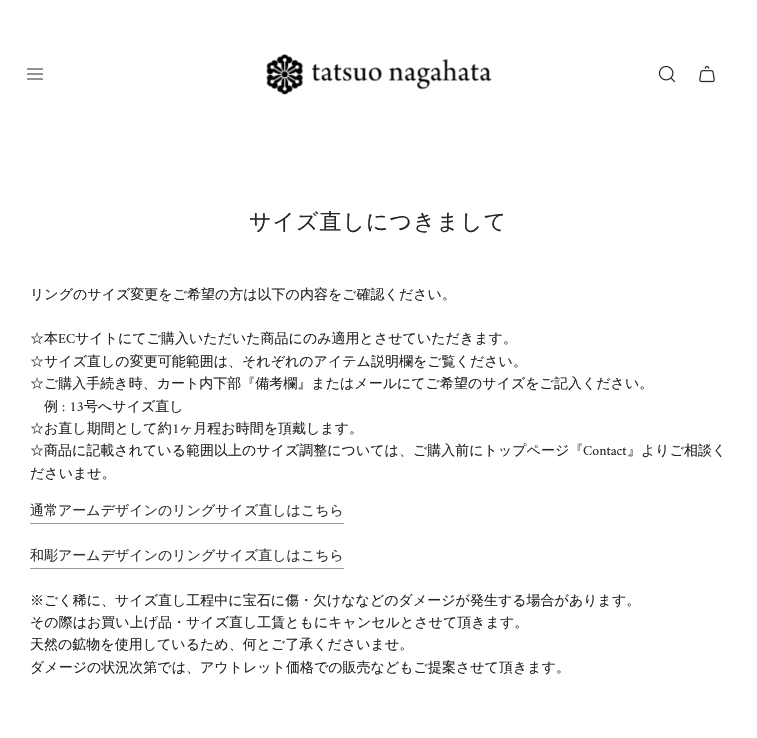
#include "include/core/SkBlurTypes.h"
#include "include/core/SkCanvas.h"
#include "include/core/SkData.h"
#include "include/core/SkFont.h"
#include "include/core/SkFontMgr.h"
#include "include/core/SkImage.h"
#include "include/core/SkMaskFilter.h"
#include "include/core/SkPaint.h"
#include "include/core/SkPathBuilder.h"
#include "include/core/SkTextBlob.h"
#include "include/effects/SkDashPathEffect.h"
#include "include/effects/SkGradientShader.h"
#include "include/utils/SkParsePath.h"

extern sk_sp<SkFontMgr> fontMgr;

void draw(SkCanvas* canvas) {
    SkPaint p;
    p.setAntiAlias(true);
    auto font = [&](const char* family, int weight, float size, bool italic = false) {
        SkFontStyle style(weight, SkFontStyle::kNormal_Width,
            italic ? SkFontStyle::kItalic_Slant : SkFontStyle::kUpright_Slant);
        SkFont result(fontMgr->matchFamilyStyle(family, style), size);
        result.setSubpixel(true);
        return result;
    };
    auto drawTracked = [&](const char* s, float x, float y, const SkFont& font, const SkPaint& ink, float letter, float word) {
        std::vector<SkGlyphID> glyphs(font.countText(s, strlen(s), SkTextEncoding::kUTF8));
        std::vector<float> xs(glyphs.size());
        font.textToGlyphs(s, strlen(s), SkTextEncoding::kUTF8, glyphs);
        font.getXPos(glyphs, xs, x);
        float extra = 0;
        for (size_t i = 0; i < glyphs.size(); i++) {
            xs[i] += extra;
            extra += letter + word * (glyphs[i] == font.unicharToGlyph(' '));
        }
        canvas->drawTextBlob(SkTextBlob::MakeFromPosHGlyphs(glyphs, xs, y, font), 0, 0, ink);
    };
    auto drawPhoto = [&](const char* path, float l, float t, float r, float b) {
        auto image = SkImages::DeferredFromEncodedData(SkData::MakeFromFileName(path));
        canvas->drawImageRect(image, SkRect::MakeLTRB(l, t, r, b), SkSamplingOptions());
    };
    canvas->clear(0xFFFFFFFF);
    p.setStyle(SkPaint::kStroke_Style);
    p.setStrokeWidth(1.2f);
    p.setStrokeCap(SkPaint::kRound_Cap);
    p.setStrokeJoin(SkPaint::kRound_Join);
    p.setColor(0xFF262428);
    canvas->drawPath(SkPathBuilder().moveTo(27.5f, 69).lineTo(42.5f, 69).moveTo(27.5f, 74).lineTo(42.5f, 74).moveTo(27.5f, 79).lineTo(42.5f, 79).detach(), p);
    drawPhoto("media/1.png", 266, 54, 492, 95);
    drawPhoto("media/2.png", 658, 65, 676, 83);
    drawPhoto("media/3.png", 699, 65, 715, 83);
    auto font1 = font("WenQuanYi Zen Hei", 500, 22);
    p.setStyle(SkPaint::kFill_Style);
    drawTracked("サイズ直しにつきまして", 249, 229, font1, p, 1, 0);
    auto font2 = font("WenQuanYi Zen Hei", 500, 14);
    canvas->drawString("リングのサイズ変更をご希望の方は以下の内容をご確認ください。", 30, 299, font2, p);
    canvas->drawString("☆本", 30, 343, font2, p);
    auto font3 = font("Amiri", 400, 14);
    canvas->drawString("EC", 58, 343, font3, p);
    {
        const struct { const char* s; float x, y; } items[] = {
            {"サイトにてご購入いただいた商品にのみ適用とさせていただきます。", 75, 343},
            {"☆サイズ直しの変更可能範囲は、それぞれのアイテム説明欄をご覧ください。", 30, 366},
            {"☆ご購入手続き時、カート内下部『備考欄』またはメールにてご希望のサイズをご記入ください。", 30, 388},
            {"例", 44, 411},
        };
        for (auto [s, x, y] : items) {
            canvas->drawString(s, x, y, font2, p);
        }
    }
    canvas->drawString(": 13", 62, 411, font3, p);
    canvas->drawString("号へサイズ直し", 84, 411, font2, p);
    canvas->drawString("☆お直し期間として約", 30, 433, font2, p);
    canvas->drawString("1", 172, 433, font3, p);
    canvas->drawString("ヶ月程お時間を頂戴します。", 179, 433, font2, p);
    canvas->drawString("☆商品に記載されている範囲以上のサイズ調整については、ご購入前にトップページ『", 30, 455, font2, p);
    canvas->drawString("Contact", 583, 455, font3, p);
    canvas->drawString("』よりご相談く", 627, 455, font2, p);
    canvas->drawString("ださいませ。", 30, 478, font2, p);
    p.setColor(0xFF333333);
    canvas->drawString("通常アームデザインのリングサイズ直しはこちら", 30, 515, font2, p);
    p.setColor(0xFF999999);
    canvas->drawRect(SkRect::MakeLTRB(30, 523, 344, 524), p);
    p.setColor(0xFF333333);
    canvas->drawString("和彫アームデザインのリングサイズ直しはこちら", 30, 560, font2, p);
    p.setColor(0xFF999999);
    canvas->drawRect(SkRect::MakeLTRB(30, 568, 344, 569), p);
    p.setColor(0xFF262428);
    {
        const struct { const char* s; float x, y; } items[] = {
            {"※ごく稀に、サイズ直し工程中に宝石に傷・欠けななどのダメージが発生する場合があります。", 30, 605},
            {"その際はお買い上げ品・サイズ直し工賃ともにキャンセルとさせて頂きます。", 30, 627},
            {"天然の鉱物を使用しているため、何とご了承くださいませ。", 30, 649},
            {"ダメージの状況次第では、アウトレット価格での販売などもご提案させて頂きます。", 30, 672},
        };
        for (auto [s, x, y] : items) {
            canvas->drawString(s, x, y, font2, p);
        }
    }
}
